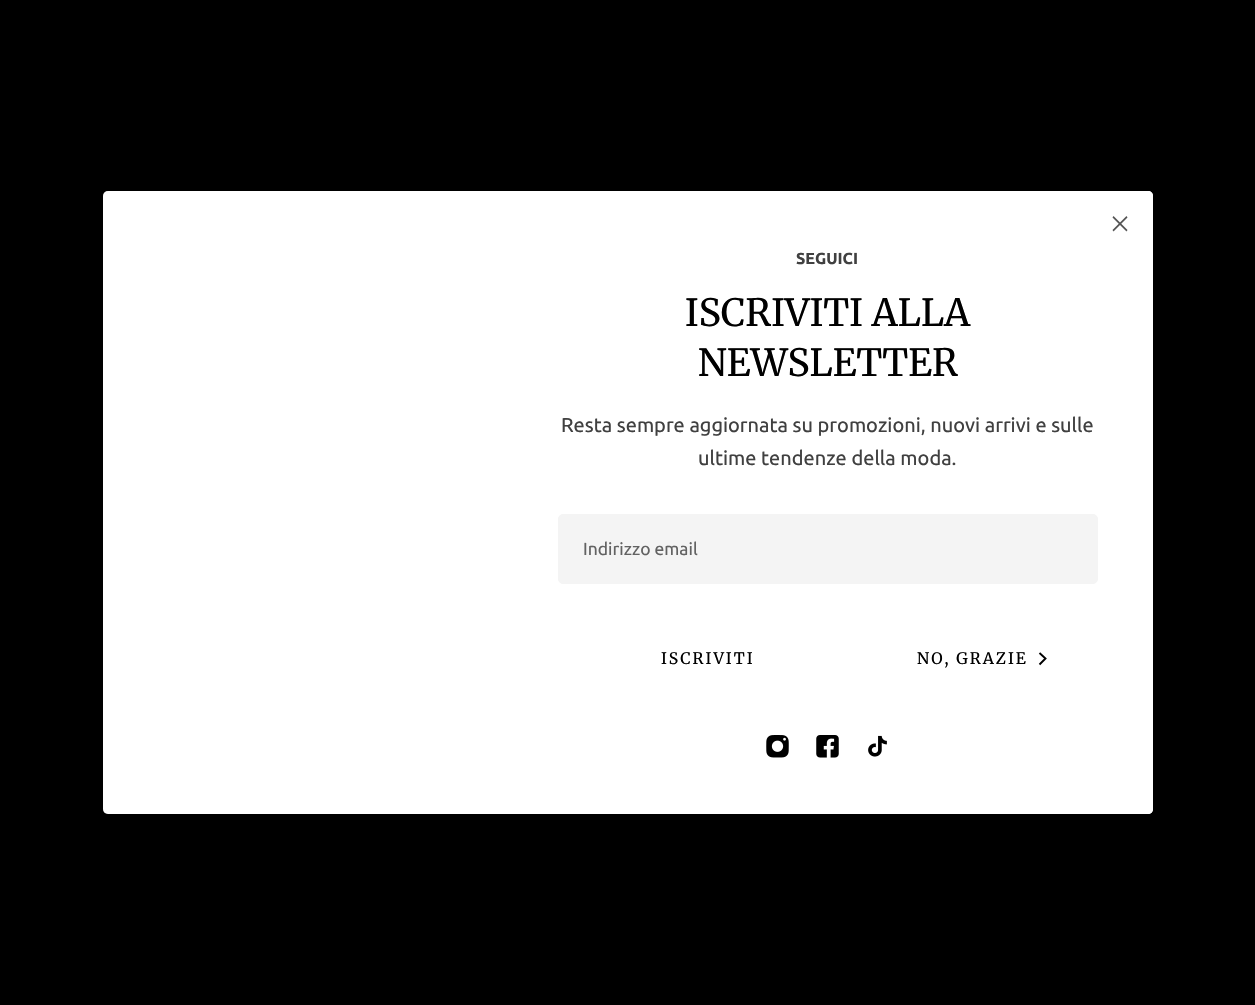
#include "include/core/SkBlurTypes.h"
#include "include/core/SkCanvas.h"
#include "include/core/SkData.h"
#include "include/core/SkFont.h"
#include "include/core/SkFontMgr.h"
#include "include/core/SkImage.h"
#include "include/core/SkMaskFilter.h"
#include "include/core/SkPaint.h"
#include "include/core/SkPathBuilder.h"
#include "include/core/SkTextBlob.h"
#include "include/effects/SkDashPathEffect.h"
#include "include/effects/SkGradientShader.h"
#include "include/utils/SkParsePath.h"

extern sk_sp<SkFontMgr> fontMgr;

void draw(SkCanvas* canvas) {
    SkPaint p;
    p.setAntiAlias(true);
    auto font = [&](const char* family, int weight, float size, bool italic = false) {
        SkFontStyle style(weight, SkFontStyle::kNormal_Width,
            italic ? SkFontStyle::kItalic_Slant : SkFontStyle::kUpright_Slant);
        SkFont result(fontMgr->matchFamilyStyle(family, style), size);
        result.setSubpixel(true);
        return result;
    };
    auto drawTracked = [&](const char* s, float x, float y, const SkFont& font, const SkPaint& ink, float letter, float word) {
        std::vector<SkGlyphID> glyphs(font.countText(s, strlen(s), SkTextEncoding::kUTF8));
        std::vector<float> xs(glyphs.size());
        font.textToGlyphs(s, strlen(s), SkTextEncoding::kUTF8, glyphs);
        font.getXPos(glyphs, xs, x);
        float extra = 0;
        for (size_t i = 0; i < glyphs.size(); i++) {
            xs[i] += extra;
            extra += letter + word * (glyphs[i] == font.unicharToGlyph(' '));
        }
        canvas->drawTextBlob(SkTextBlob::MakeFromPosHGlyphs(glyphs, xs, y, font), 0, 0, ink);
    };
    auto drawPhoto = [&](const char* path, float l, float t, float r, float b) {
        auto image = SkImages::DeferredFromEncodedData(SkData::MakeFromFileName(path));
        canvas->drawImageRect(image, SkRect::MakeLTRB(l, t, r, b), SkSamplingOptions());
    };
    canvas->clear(0xFF000000);
    p.setColor(0xFFFFFFFF);
    canvas->drawRoundRect(SkRect::MakeLTRB(103, 191, 1153, 814), 5, 5, p);
    p.setColor(0x40FFFFFF);
    canvas->drawPath(SkPathBuilder().moveTo(108, 191).lineTo(503, 191).lineTo(503, 814).lineTo(108, 814).cubicTo(105, 814, 103, 812, 103, 809).lineTo(103, 196).cubicTo(103, 193, 105, 191, 108, 191).close().detach(), p);
    p.setColor(0xFFFFFFFF);
    canvas->drawPath(SkPathBuilder().moveTo(503, 191).lineTo(1148, 191).cubicTo(1151, 191, 1153, 193, 1153, 196).lineTo(1153, 809).cubicTo(1153, 812, 1151, 814, 1148, 814).lineTo(503, 814).close().detach(), p);
    p.setColor(0xFF545454);
    canvas->drawPath(SkPathBuilder().moveTo(1113.5f, 216).lineTo(1127.5f, 230).lineTo(1126.5f, 231.5f).lineTo(1112.5f, 217.5f).close().detach(), p);
    canvas->drawPath(SkPathBuilder().moveTo(1112.5f, 230).lineTo(1126.5f, 216).lineTo(1127.5f, 217.5f).lineTo(1113.5f, 231.5f).close().detach(), p);
    auto font1 = font("Ubuntu", 700, 16);
    p.setColor(0xFF404040);
    canvas->drawString("SEGUICI", 796, 264, font1, p);
    auto font2 = font("Merriweather", 400, 37.5f);
    p.setColor(0xFF000000);
    canvas->drawString("ISCRIVITI ALLA", 685, 326, font2, p);
    canvas->drawString("NEWSLETTER", 698, 376, font2, p);
    auto font3 = font("Ubuntu", 400, 20);
    p.setColor(0xFF404040);
    canvas->drawString("Resta sempre aggiornata su promozioni, nuovi arrivi e sulle", 561, 432, font3, p);
    canvas->drawString("ultime tendenze della moda.", 698, 465, font3, p);
    p.setColor(0xFFF4F4F4);
    canvas->drawRoundRect(SkRect::MakeLTRB(558.5f, 514.5f, 1097.5f, 583.5f), 4.5f, 4.5f, p);
    p.setStyle(SkPaint::kStroke_Style);
    p.setStrokeWidth(1);
    canvas->drawRoundRect(SkRect::MakeLTRB(558.5f, 514.5f, 1097.5f, 583.5f), 4.5f, 4.5f, p);
    auto font4 = font("Ubuntu", 400, 17.5f);
    p.setStyle(SkPaint::kFill_Style);
    p.setColor(0xFF626262);
    canvas->drawString("Indirizzo email", 583, 555, font4, p);
    auto font5 = font("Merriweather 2", 400, 15.75f);
    p.setColor(0xFF000000);
    drawTracked("ISCRIVITI", 661, 664, font5, p, 2, 0);
    drawTracked("NO, GRAZIE", 917, 664, font5, p, 2, 0);
    p.setStyle(SkPaint::kStroke_Style);
    p.setStrokeWidth(1.9f);
    canvas->drawPath(SkPathBuilder().moveTo(1039.5f, 653).lineTo(1045.5f, 658.5f).lineTo(1039.5f, 664.5f).detach(), p);
    drawPhoto("media/1.png", 766, 735, 789, 758);
    drawPhoto("media/2.png", 816, 735, 839, 758);
    drawPhoto("media/3.png", 868, 735, 887, 757);
}
